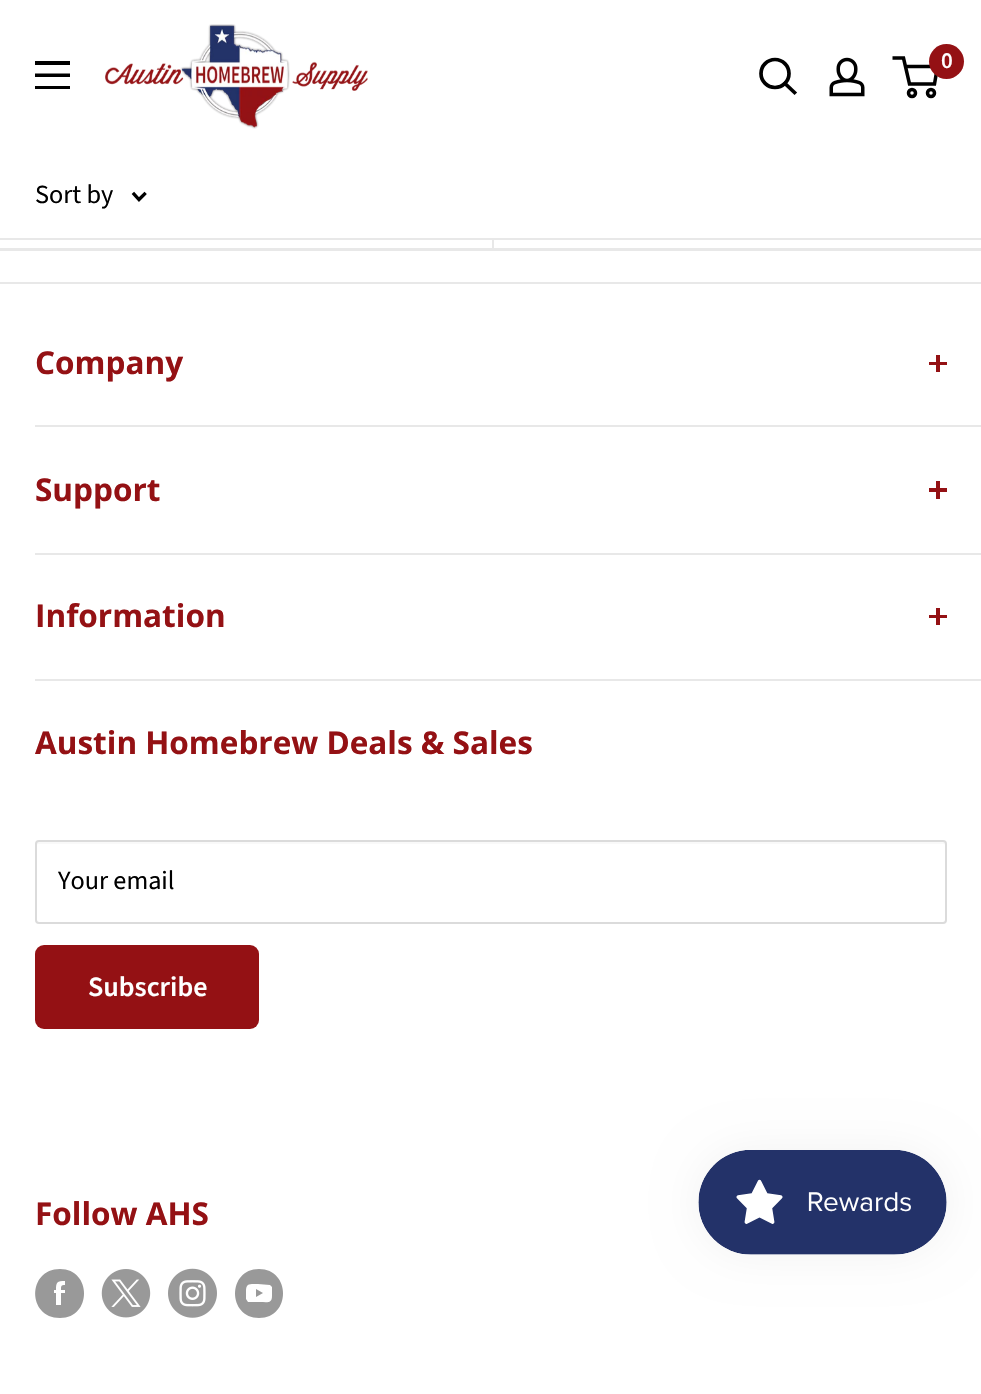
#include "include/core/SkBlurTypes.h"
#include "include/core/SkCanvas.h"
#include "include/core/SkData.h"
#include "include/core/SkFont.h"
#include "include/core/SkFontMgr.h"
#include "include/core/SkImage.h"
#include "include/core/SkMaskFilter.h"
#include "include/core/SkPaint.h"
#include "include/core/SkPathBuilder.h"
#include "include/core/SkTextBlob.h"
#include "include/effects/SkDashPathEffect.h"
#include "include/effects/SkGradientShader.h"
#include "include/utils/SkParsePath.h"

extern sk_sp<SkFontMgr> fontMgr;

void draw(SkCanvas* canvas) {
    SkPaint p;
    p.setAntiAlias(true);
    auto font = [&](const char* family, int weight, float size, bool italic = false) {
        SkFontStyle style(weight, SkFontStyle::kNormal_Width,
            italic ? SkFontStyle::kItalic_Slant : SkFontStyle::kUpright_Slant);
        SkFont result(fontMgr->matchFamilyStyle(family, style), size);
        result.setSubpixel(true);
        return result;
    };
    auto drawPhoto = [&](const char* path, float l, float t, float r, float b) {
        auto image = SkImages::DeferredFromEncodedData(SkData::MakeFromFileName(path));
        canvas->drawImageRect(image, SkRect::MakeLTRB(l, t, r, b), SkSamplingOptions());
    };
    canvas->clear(0xFFFFFFFF);
    canvas->save();
    canvas->clipRect(SkRect::MakeLTRB(0, 0, 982, 249));
    p.setColor(0xFFE8E8E8);
    canvas->drawPath(SkPathBuilder().moveTo(0, 248).lineTo(0, 250).lineTo(492, 250).lineTo(492, -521).lineTo(492, 248).close().detach(), p);
    canvas->restore();
    canvas->drawPath(SkPathBuilder().moveTo(2, 248).lineTo(2, 249).lineTo(494, 249).lineTo(494, -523).lineTo(492, -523).lineTo(492, 248).close().detach(), p);
    p.setColor(0xFF000000);
    canvas->drawPath(SkPathBuilder(SkPathFillType::kEvenOdd).moveTo(35, 86).lineTo(70, 86).lineTo(70, 89).lineTo(35, 89).close().moveTo(35, 61).lineTo(70, 61).lineTo(70, 65).lineTo(35, 65).close().moveTo(35, 73.5f).lineTo(70, 73.5f).lineTo(70, 77).lineTo(35, 77).close().detach(), p);
    drawPhoto("media/1.png", 105, 24, 368, 129);
    p.setStyle(SkPaint::kStroke_Style);
    p.setStrokeWidth(3.7f);
    p.setStrokeCap(SkPaint::kSquare_Cap);
    canvas->drawPath(SkPathBuilder().moveTo(794.5f, 92.5f).lineTo(785, 83.5f).detach(), p);
    p.setStrokeCap(SkPaint::kButt_Cap);
    canvas->drawCircle(775, 73.5f, 14, p);
    drawPhoto("media/2.png", 829, 57, 865, 97);
    p.setStrokeWidth(3.5f);
    canvas->drawCircle(912, 93, 3.5f, p);
    canvas->drawCircle(931, 93, 3.5f, p);
    canvas->drawPath(SkPathBuilder().moveTo(905.5f, 66.5f).lineTo(937.5f, 66.5f).lineTo(934.5f, 84).lineTo(909.5f, 84).lineTo(903.5f, 58).lineTo(892.5f, 58).detach(), p);
    p.setStyle(SkPaint::kFill_Style);
    p.setColor(0xFF941114);
    canvas->drawCircle(946.5f, 61.5f, 17.5f, p);
    auto font1 = font("Source Sans Pro", 600, 23);
    p.setColor(0xFFFFFFFF);
    canvas->drawString("0", 941, 68, font1, p);
    p.setColor(0xFFE8E8E8);
    canvas->drawRect(SkRect::MakeLTRB(0, 249, 981, 251), p);
    canvas->save();
    canvas->clipRect(SkRect::MakeLTRB(0, 0, 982, 249));
    canvas->drawPath(SkPathBuilder().moveTo(492, 248).lineTo(492, 250).lineTo(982, 250).lineTo(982, -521).lineTo(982, 248).close().detach(), p);
    canvas->restore();
    canvas->drawPath(SkPathBuilder().moveTo(0, 238).lineTo(0, 240).lineTo(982, 240).lineTo(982, 156).lineTo(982, 238).close().detach(), p);
    p.setColor(0xFFFFFFFF);
    canvas->drawRect(SkRect::MakeLTRB(492, 0, 494, 238), p);
    auto font2 = font("Source Sans Pro", 400, 26.25f);
    p.setColor(0xFF000000);
    canvas->drawString("Sort by", 35, 203, font2, p);
    p.setStyle(SkPaint::kStroke_Style);
    p.setStrokeWidth(3.3f);
    p.setStrokeCap(SkPaint::kSquare_Cap);
    canvas->drawPath(SkPathBuilder().moveTo(144.5f, 194).lineTo(139, 199.5f).lineTo(134, 194).detach(), p);
    p.setStyle(SkPaint::kFill_Style);
    p.setColor(0xFFE8E8E8);
    canvas->drawRect(SkRect::MakeLTRB(0, 282, 981, 284), p);
    canvas->drawRect(SkRect::MakeLTRB(35, 425, 981, 427), p);
    auto font3 = font("Open Sans", 700, 31.5f);
    p.setColor(0xFF941114);
    canvas->drawString("Company", 35, 374, font3, p);
    {
        const struct { float l, t, r, b; SkColor color; } items[] = {
            {936, 355, 940, 372, 0xFF941114},
            {929, 362, 947, 365, 0xFF941114},
            {35, 553, 981, 555, 0xFFE8E8E8},
        };
        for (auto [l, t, r, b, color] : items) {
            p.setColor(color);
            canvas->drawRect(SkRect::MakeLTRB(l, t, r, b), p);
        }
    }
    p.setColor(0xFF941114);
    canvas->drawString("Support", 35, 501, font3, p);
    {
        const struct { float l, t, r, b; SkColor color; } items[] = {
            {936, 481, 940, 499, 0xFF941114},
            {929, 488, 947, 492, 0xFF941114},
            {35, 679, 981, 681, 0xFFE8E8E8},
        };
        for (auto [l, t, r, b, color] : items) {
            p.setColor(color);
            canvas->drawRect(SkRect::MakeLTRB(l, t, r, b), p);
        }
    }
    p.setColor(0xFF941114);
    canvas->drawString("Information", 35, 627, font3, p);
    canvas->drawRect(SkRect::MakeLTRB(936, 608, 940, 625), p);
    canvas->drawRect(SkRect::MakeLTRB(929, 615, 947, 618), p);
    canvas->drawString("Austin Homebrew Deals & Sales", 35, 754, font3, p);
    p.setColor(0xFFF9F9F9);
    canvas->drawPath(SkPathBuilder().moveTo(38, 844).lineTo(943, 844).cubicTo(944, 844, 945, 844, 945, 845).lineTo(945, 844).cubicTo(945, 843, 944, 842, 943, 842).lineTo(39, 842).cubicTo(38, 842, 37, 843, 37, 844).lineTo(37, 845).close().detach(), p);
    p.setStyle(SkPaint::kStroke_Style);
    p.setStrokeWidth(2);
    p.setStrokeCap(SkPaint::kButt_Cap);
    p.setColor(0xFFDBDBDB);
    canvas->drawRoundRect(SkRect::MakeLTRB(36, 841, 946, 923), 3, 3, p);
    p.setStyle(SkPaint::kFill_Style);
    p.setColor(0xFF000000);
    canvas->drawString("Your email", 58, 889, font2, p);
    p.setColor(0xFF941114);
    canvas->drawRoundRect(SkRect::MakeLTRB(35, 945, 259, 1029), 9, 9, p);
    auto font4 = font("Source Sans Pro", 600, 28);
    p.setColor(0xFFFFFFFF);
    canvas->drawString("Subscribe", 88, 996, font4, p);
    p.setColor(0xFF941114);
    canvas->drawString("Follow AHS", 35, 1225, font3, p);
    p.setColor(0xFF999999);
    canvas->drawPath(SkPathBuilder(SkPathFillType::kEvenOdd).moveTo(60, 1318).cubicTo(27, 1318, 27, 1269, 60, 1269).cubicTo(92, 1269, 92, 1318, 60, 1318).close().moveTo(65, 1290).lineTo(61, 1290).cubicTo(61, 1286, 61, 1285, 65, 1285).lineTo(65, 1281).cubicTo(57, 1281, 56, 1282, 56, 1290).lineTo(54, 1290).lineTo(54, 1293).lineTo(56, 1293).lineTo(56, 1305).lineTo(61, 1305).lineTo(61, 1293).lineTo(65, 1293).close().detach(), p);
    drawPhoto("media/3.png", 101, 1269, 151, 1318);
    drawPhoto("media/4.png", 168, 1268, 217, 1318);
    canvas->drawPath(SkPathBuilder(SkPathFillType::kEvenOdd).moveTo(259, 1318).cubicTo(291, 1318, 291, 1269, 259, 1269).cubicTo(227, 1269, 227, 1318, 259, 1318).close().moveTo(272, 1287).lineTo(272, 1296).cubicTo(272, 1304, 267, 1302, 259, 1302).lineTo(248, 1302).lineTo(246, 1299).lineTo(246, 1291).cubicTo(246, 1283, 250, 1284, 258, 1284).lineTo(270, 1285).close().moveTo(256, 1297).lineTo(263, 1293).lineTo(256, 1289).close().detach(), p);
    p.setColor(0x0D000000);
    p.setMaskFilter(SkMaskFilter::MakeBlur(kNormal_SkBlurStyle, 22));
    canvas->drawRoundRect(SkRect::MakeLTRB(698, 1150, 947, 1255), 52.5f, 52.5f, p);
    p.setMaskFilter(nullptr);
    drawPhoto("media/5.png", 698, 1150, 947, 1255);
}
